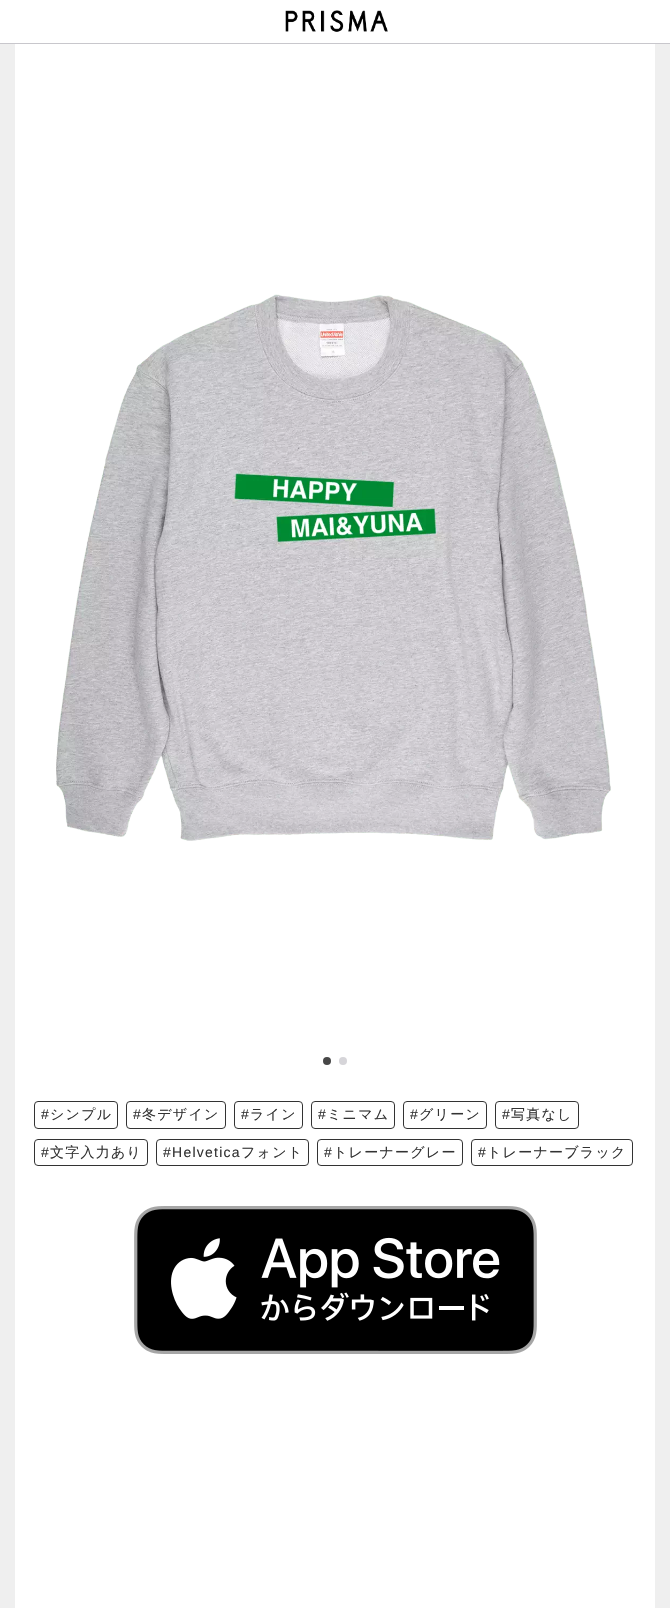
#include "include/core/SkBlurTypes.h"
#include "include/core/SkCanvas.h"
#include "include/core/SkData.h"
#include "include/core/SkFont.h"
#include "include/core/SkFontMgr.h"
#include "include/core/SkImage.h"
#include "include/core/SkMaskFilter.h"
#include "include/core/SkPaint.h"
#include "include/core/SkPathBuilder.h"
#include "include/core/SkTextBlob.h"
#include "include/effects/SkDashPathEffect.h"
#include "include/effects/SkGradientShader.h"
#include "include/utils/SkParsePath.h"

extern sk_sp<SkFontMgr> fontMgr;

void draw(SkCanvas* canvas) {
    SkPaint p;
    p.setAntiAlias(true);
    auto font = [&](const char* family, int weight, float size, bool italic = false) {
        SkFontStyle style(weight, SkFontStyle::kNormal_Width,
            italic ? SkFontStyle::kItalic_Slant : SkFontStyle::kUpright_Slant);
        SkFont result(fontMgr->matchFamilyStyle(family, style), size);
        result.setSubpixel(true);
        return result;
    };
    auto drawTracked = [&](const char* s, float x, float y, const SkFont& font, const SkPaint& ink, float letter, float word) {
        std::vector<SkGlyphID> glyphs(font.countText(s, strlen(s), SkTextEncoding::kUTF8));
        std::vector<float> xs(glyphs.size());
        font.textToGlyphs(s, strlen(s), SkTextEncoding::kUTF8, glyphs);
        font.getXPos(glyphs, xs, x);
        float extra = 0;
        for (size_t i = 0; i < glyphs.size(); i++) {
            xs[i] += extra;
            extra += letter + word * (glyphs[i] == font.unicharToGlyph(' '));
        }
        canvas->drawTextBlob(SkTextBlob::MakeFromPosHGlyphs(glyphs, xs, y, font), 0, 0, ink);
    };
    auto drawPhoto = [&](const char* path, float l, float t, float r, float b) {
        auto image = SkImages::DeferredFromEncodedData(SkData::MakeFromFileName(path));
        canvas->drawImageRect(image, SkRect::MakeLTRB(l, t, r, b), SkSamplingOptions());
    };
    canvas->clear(0xFFEFEFEF);
    p.setColor(0xFFFFFFFF);
    canvas->drawRect(SkRect::MakeLTRB(0, 0, 670, 43), p);
    p.setColor(0xFFC8C7CC);
    canvas->drawRect(SkRect::MakeLTRB(0, 43, 670, 44), p);
    drawPhoto("media/1.png", 285, 10, 388, 32);
    p.setColor(0xFFFFFFFF);
    canvas->drawRect(SkRect::MakeLTRB(15, 44, 655, 1608), p);
    drawPhoto("media/2.png", 56, 294, 611, 841);
    p.setColor(0xFF474747);
    canvas->drawCircle(327, 1061, 4, p);
    p.setColor(0xFFD6D5D9);
    canvas->drawCircle(343, 1061, 4, p);
    p.setStyle(SkPaint::kStroke_Style);
    p.setStrokeWidth(1);
    p.setColor(0xFF333333);
    canvas->drawRoundRect(SkRect::MakeLTRB(34.5f, 1101.5f, 117.5f, 1128.5f), 3.5f, 3.5f, p);
    auto font1 = font("Liberation Sans", 400, 14);
    p.setStyle(SkPaint::kFill_Style);
    drawTracked("#", 41, 1119, font1, p, 1.25f, 0);
    auto font2 = font("WenQuanYi Zen Hei", 500, 14);
    drawTracked("シンプル", 50, 1119, font2, p, 1.25f, 0);
    p.setStyle(SkPaint::kStroke_Style);
    canvas->drawRoundRect(SkRect::MakeLTRB(126.5f, 1101.5f, 225.5f, 1128.5f), 3.5f, 3.5f, p);
    p.setStyle(SkPaint::kFill_Style);
    drawTracked("#", 133, 1119, font1, p, 1.25f, 0);
    drawTracked("冬デザイン", 142, 1119, font2, p, 1.25f, 0);
    p.setStyle(SkPaint::kStroke_Style);
    canvas->drawRoundRect(SkRect::MakeLTRB(234.5f, 1101.5f, 302.5f, 1128.5f), 3.5f, 3.5f, p);
    p.setStyle(SkPaint::kFill_Style);
    drawTracked("#", 241, 1119, font1, p, 1.25f, 0);
    drawTracked("ライン", 250, 1119, font2, p, 1.25f, 0);
    p.setStyle(SkPaint::kStroke_Style);
    canvas->drawRoundRect(SkRect::MakeLTRB(311.5f, 1101.5f, 394.5f, 1128.5f), 3.5f, 3.5f, p);
    p.setStyle(SkPaint::kFill_Style);
    drawTracked("#", 318, 1119, font1, p, 1.25f, 0);
    drawTracked("ミニマム", 327, 1119, font2, p, 1.25f, 0);
    p.setStyle(SkPaint::kStroke_Style);
    canvas->drawRoundRect(SkRect::MakeLTRB(403.5f, 1101.5f, 486.5f, 1128.5f), 3.5f, 3.5f, p);
    p.setStyle(SkPaint::kFill_Style);
    drawTracked("#", 410, 1119, font1, p, 1.25f, 0);
    drawTracked("グリーン", 419, 1119, font2, p, 1.25f, 0);
    p.setStyle(SkPaint::kStroke_Style);
    canvas->drawRoundRect(SkRect::MakeLTRB(495.5f, 1101.5f, 578.5f, 1128.5f), 3.5f, 3.5f, p);
    p.setStyle(SkPaint::kFill_Style);
    drawTracked("#", 502, 1119, font1, p, 1.25f, 0);
    drawTracked("写真なし", 511, 1119, font2, p, 1.25f, 0);
    p.setStyle(SkPaint::kStroke_Style);
    canvas->drawRoundRect(SkRect::MakeLTRB(34.5f, 1139.5f, 147.5f, 1165.5f), 3.5f, 3.5f, p);
    p.setStyle(SkPaint::kFill_Style);
    drawTracked("#", 41, 1157, font1, p, 1.25f, 0);
    drawTracked("文字入力あり", 50, 1157, font2, p, 1.25f, 0);
    p.setStyle(SkPaint::kStroke_Style);
    canvas->drawRoundRect(SkRect::MakeLTRB(156.5f, 1139.5f, 308.5f, 1165.5f), 3.5f, 3.5f, p);
    p.setStyle(SkPaint::kFill_Style);
    drawTracked("#Helvetica", 163, 1157, font1, p, 1.25f, 0);
    drawTracked("フォント", 241, 1157, font2, p, 1.25f, 0);
    p.setStyle(SkPaint::kStroke_Style);
    canvas->drawRoundRect(SkRect::MakeLTRB(317.5f, 1139.5f, 462.5f, 1165.5f), 3.5f, 3.5f, p);
    p.setStyle(SkPaint::kFill_Style);
    drawTracked("#", 324, 1157, font1, p, 1.25f, 0);
    drawTracked("トレーナーグレー", 333, 1157, font2, p, 1.25f, 0);
    p.setStyle(SkPaint::kStroke_Style);
    canvas->drawRoundRect(SkRect::MakeLTRB(471.5f, 1139.5f, 632.5f, 1165.5f), 3.5f, 3.5f, p);
    p.setStyle(SkPaint::kFill_Style);
    drawTracked("#", 478, 1157, font1, p, 1.25f, 0);
    drawTracked("トレーナーブラック", 487, 1157, font2, p, 1.25f, 0);
    drawPhoto("media/3.png", 134, 1206, 537, 1354);
}
